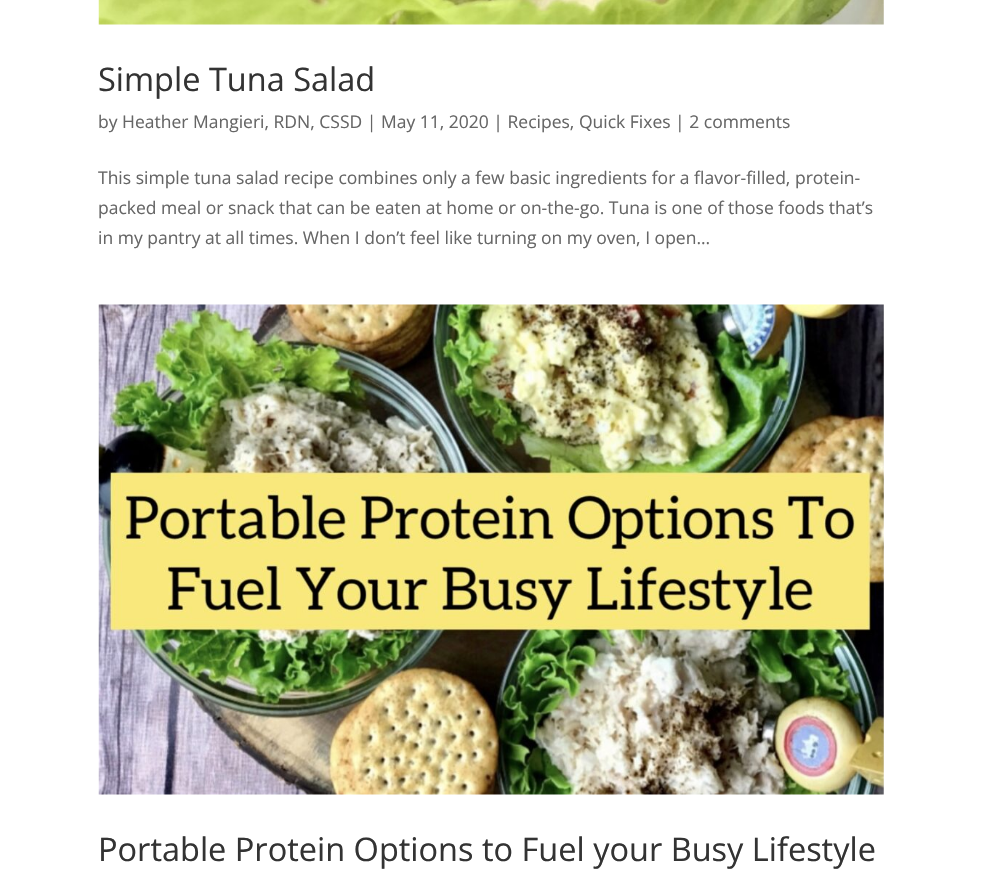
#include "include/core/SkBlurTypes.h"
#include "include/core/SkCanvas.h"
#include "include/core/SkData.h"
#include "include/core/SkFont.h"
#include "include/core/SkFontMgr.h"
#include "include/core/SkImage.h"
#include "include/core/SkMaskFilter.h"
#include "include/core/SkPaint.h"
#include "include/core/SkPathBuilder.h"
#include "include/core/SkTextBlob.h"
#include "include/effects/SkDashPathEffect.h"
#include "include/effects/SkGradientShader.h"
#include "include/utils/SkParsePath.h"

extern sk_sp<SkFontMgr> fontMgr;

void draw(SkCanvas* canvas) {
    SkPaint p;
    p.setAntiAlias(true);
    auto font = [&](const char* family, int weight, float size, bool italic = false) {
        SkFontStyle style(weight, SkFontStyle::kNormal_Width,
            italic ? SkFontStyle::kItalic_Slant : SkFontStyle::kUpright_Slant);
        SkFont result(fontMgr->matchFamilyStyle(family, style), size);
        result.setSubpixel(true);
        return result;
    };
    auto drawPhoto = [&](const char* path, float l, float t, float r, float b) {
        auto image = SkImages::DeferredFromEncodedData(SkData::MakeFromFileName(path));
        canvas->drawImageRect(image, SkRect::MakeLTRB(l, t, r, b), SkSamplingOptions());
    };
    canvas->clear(0xFFFFFFFF);
    drawPhoto("media/1.png", 98, 0, 884, 25);
    auto font1 = font("Open Sans", 400, 32.5f);
    p.setColor(0xFF333333);
    canvas->drawString("Simple Tuna Salad", 98, 91, font1, p);
    auto font2 = font("Open Sans", 400, 17.5f);
    p.setColor(0xFF666666);
    {
        const struct { const char* s; float x, y; } items[] = {
            {"by Heather Mangieri, RDN, CSSD | May 11, 2020 | Recipes, Quick Fixes | 2 comments", 98, 128},
            {"This simple tuna salad recipe combines only a few basic ingredients for a flavor-filled, protein-", 98, 184},
            {"packed meal or snack that can be eaten at home or on-the-go. Tuna is one of those foods that’s", 98, 214},
            {"in my pantry at all times. When I don’t feel like turning on my oven, I open...", 98, 244},
        };
        for (auto [s, x, y] : items) {
            canvas->drawString(s, x, y, font2, p);
        }
    }
    drawPhoto("media/2.png", 98, 304, 884, 795);
    p.setColor(0xFF333333);
    canvas->drawString("Portable Protein Options to Fuel your Busy Lifestyle", 98, 861, font1, p);
}
